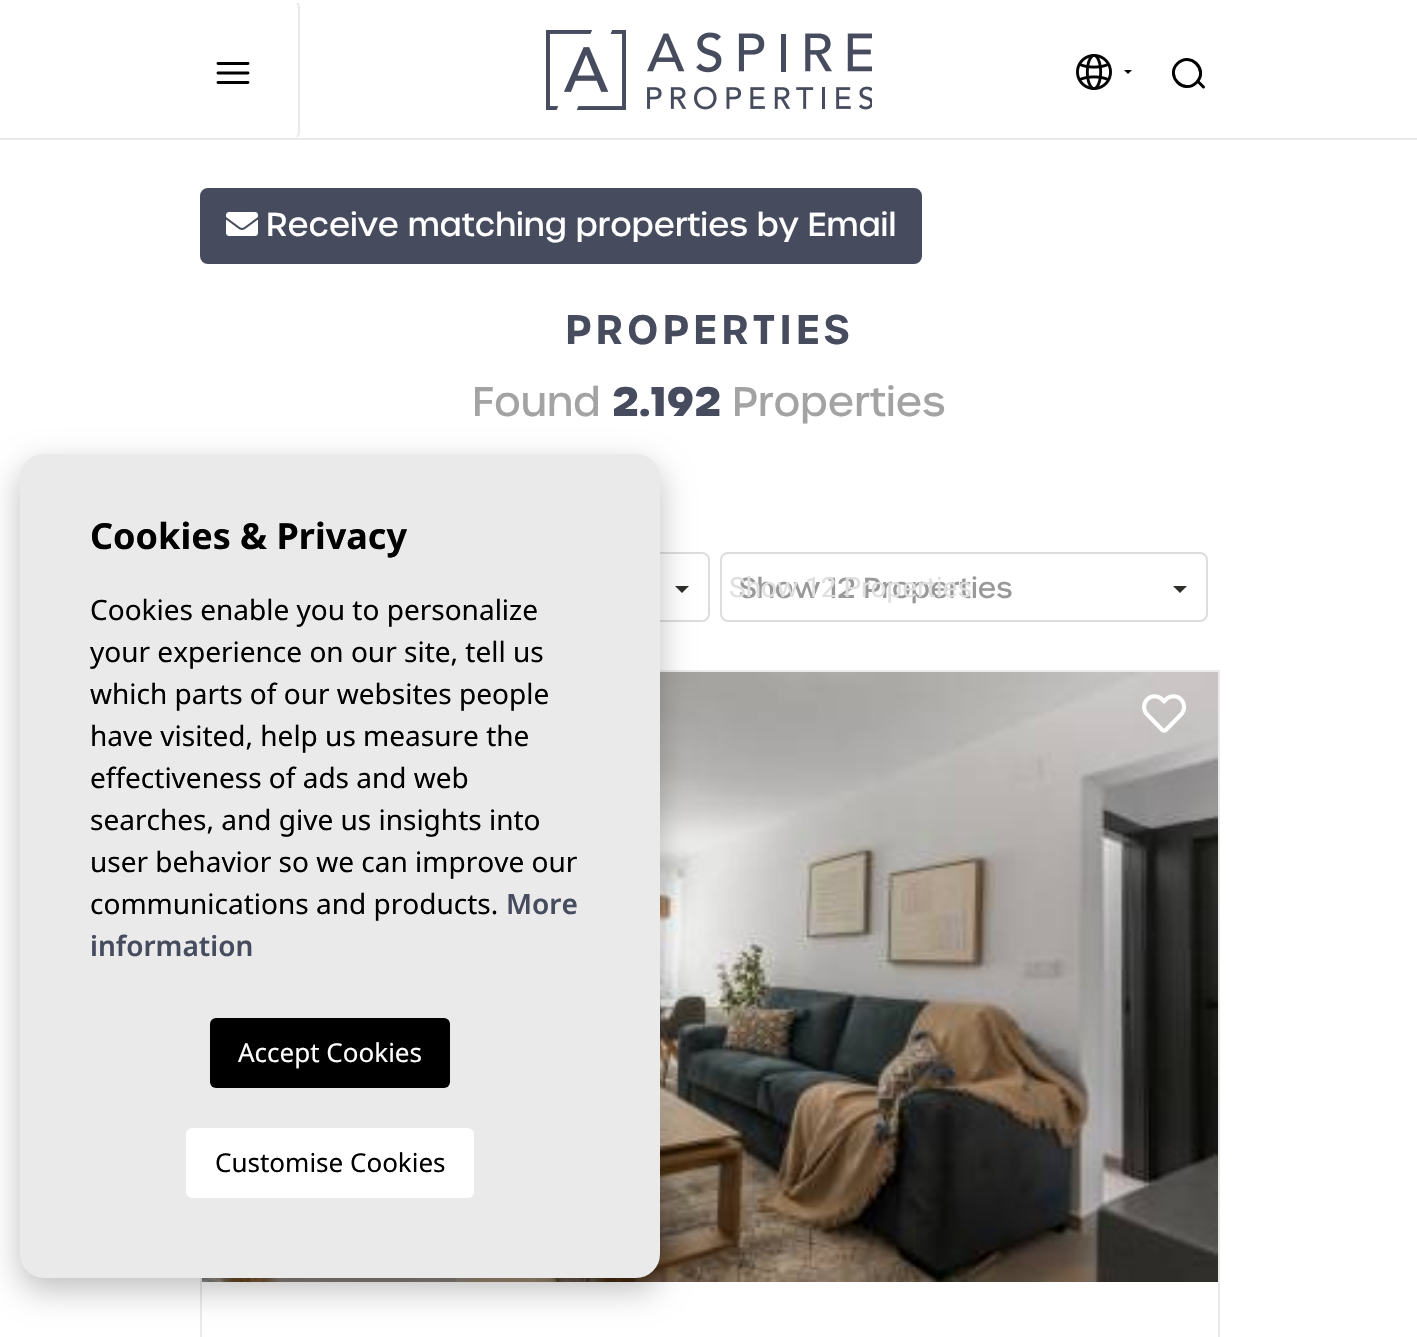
#include "include/core/SkBlurTypes.h"
#include "include/core/SkCanvas.h"
#include "include/core/SkData.h"
#include "include/core/SkFont.h"
#include "include/core/SkFontMgr.h"
#include "include/core/SkImage.h"
#include "include/core/SkMaskFilter.h"
#include "include/core/SkPaint.h"
#include "include/core/SkPathBuilder.h"
#include "include/core/SkTextBlob.h"
#include "include/effects/SkDashPathEffect.h"
#include "include/effects/SkGradientShader.h"
#include "include/utils/SkParsePath.h"

extern sk_sp<SkFontMgr> fontMgr;

void draw(SkCanvas* canvas) {
    SkPaint p;
    p.setAntiAlias(true);
    auto font = [&](const char* family, int weight, float size, bool italic = false) {
        SkFontStyle style(weight, SkFontStyle::kNormal_Width,
            italic ? SkFontStyle::kItalic_Slant : SkFontStyle::kUpright_Slant);
        SkFont result(fontMgr->matchFamilyStyle(family, style), size);
        result.setSubpixel(true);
        return result;
    };
    auto drawTracked = [&](const char* s, float x, float y, const SkFont& font, const SkPaint& ink, float letter, float word) {
        std::vector<SkGlyphID> glyphs(font.countText(s, strlen(s), SkTextEncoding::kUTF8));
        std::vector<float> xs(glyphs.size());
        font.textToGlyphs(s, strlen(s), SkTextEncoding::kUTF8, glyphs);
        font.getXPos(glyphs, xs, x);
        float extra = 0;
        for (size_t i = 0; i < glyphs.size(); i++) {
            xs[i] += extra;
            extra += letter + word * (glyphs[i] == font.unicharToGlyph(' '));
        }
        canvas->drawTextBlob(SkTextBlob::MakeFromPosHGlyphs(glyphs, xs, y, font), 0, 0, ink);
    };
    auto drawPhoto = [&](const char* path, float l, float t, float r, float b) {
        auto image = SkImages::DeferredFromEncodedData(SkData::MakeFromFileName(path));
        canvas->drawImageRect(image, SkRect::MakeLTRB(l, t, r, b), SkSamplingOptions());
    };
    canvas->clear(0xFFFFFFFF);
    p.setColor(0xFFEAEAEA);
    canvas->drawRect(SkRect::MakeLTRB(0, 138, 1417, 140), p);
    p.setStyle(SkPaint::kStroke_Style);
    p.setStrokeWidth(2);
    canvas->drawPath(SkPathBuilder().moveTo(297, 3).cubicTo(298.5f, 4.5f, 299, 6, 299, 8).lineTo(299, 132).cubicTo(299, 134, 298.5f, 135.5f, 297, 137).detach(), p);
    p.setStrokeWidth(2.9f);
    p.setStrokeCap(SkPaint::kRound_Cap);
    p.setColor(0xFF000000);
    canvas->drawPath(SkPathBuilder().moveTo(218, 63.5f).lineTo(248, 63.5f).moveTo(218, 73).lineTo(248, 73).moveTo(218, 82.5f).lineTo(248, 82.5f).detach(), p);
    drawPhoto("media/1.png", 546, 30, 872, 110);
    drawPhoto("media/2.png", 1076, 54, 1112, 90);
    p.setStyle(SkPaint::kFill_Style);
    canvas->drawPath(SkPathBuilder().moveTo(1128, 74).lineTo(1124, 70).lineTo(1132, 70).close().detach(), p);
    p.setStyle(SkPaint::kStroke_Style);
    p.setStrokeWidth(3);
    p.setStrokeCap(SkPaint::kButt_Cap);
    canvas->drawPath(SkPathBuilder().moveTo(1177.5f, 63.5f).cubicTo(1190, 51, 1209, 70, 1196.5f, 82.5f).cubicTo(1184, 95, 1165, 76, 1177.5f, 63.5f).close().detach(), p);
    p.setStrokeCap(SkPaint::kRound_Cap);
    canvas->drawPath(SkPathBuilder().moveTo(1199, 82.5f).lineTo(1203.5f, 87).detach(), p);
    p.setStyle(SkPaint::kFill_Style);
    p.setColor(0xFF464B5E);
    canvas->drawRoundRect(SkRect::MakeLTRB(201, 189, 921, 263), 7, 7, p);
    p.setStyle(SkPaint::kStroke_Style);
    p.setStrokeWidth(2);
    p.setStrokeCap(SkPaint::kButt_Cap);
    canvas->drawRoundRect(SkRect::MakeLTRB(201, 189, 921, 263), 7, 7, p);
    drawPhoto("media/3.png", 226, 212, 258, 236);
    auto font1 = font("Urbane", 500, 32);
    p.setStyle(SkPaint::kFill_Style);
    p.setColor(0xFFFFFFFF);
    canvas->drawString("Receive matching properties by Email", 266, 236, font1, p);
    auto font2 = font("Urbane", 600, 40);
    p.setColor(0xFF464B5E);
    drawTracked("PROPERTIES", 565, 344, font2, p, 4, 0);
    auto font3 = font("Urbane", 500, 40);
    p.setColor(0xFFA3A3A3);
    canvas->drawString("Found", 472, 416, font3, p);
    auto font4 = font("Urbane", 700, 40);
    p.setColor(0xFF464B5E);
    canvas->drawString("2.192", 612, 416, font4, p);
    p.setColor(0xFFA3A3A3);
    canvas->drawString("Properties", 732, 416, font3, p);
    p.setStyle(SkPaint::kStroke_Style);
    p.setColor(0xFFDDDDDD);
    canvas->drawRoundRect(SkRect::MakeLTRB(221, 553, 709, 621), 7, 7, p);
    p.setStyle(SkPaint::kFill_Style);
    p.setColor(0xFF2E2E2D);
    canvas->drawPath(SkPathBuilder().moveTo(675, 586).lineTo(682, 593).lineTo(689, 586).detach(), p);
    p.setStyle(SkPaint::kStroke_Style);
    p.setColor(0xFFDDDDDD);
    canvas->drawRoundRect(SkRect::MakeLTRB(721, 553, 1207, 621), 7, 7, p);
    auto font5 = font("Urbane", 500, 28);
    p.setStyle(SkPaint::kFill_Style);
    p.setColor(0xFF999999);
    canvas->drawString("Show 12 Properties", 739, 598, font5, p);
    auto font6 = font("Roboto", 400, 28);
    p.setColor(0xFFDFDFDF);
    canvas->drawString("Show 12 Properties", 729, 597, font6, p);
    p.setColor(0xFF2E2E2D);
    canvas->drawPath(SkPathBuilder().moveTo(1173, 586).lineTo(1180, 593).lineTo(1187, 586).detach(), p);
    p.setStyle(SkPaint::kStroke_Style);
    p.setColor(0xFFEAEAEA);
    canvas->drawRect(SkRect::MakeLTRB(201, 671, 1219, 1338), p);
    drawPhoto("media/4.png", 202, 672, 1218, 1282);
    drawPhoto("media/5.png", 1142, 694, 1187, 733);
    p.setStyle(SkPaint::kFill_Style);
    p.setColor(0x40000000);
    p.setMaskFilter(SkMaskFilter::MakeBlur(kNormal_SkBlurStyle, 16));
    canvas->drawRoundRect(SkRect::MakeLTRB(20, 466, 660, 1290), 24, 24, p);
    p.setMaskFilter(nullptr);
    p.setColor(0xFFEAEAEA);
    canvas->drawRoundRect(SkRect::MakeLTRB(20, 454, 660, 1278), 24, 24, p);
    auto font7 = font("Noto Sans", 700, 36);
    p.setColor(0xFF000000);
    canvas->drawString("Cookies & Privacy", 90, 549, font7, p);
    auto font8 = font("Noto Sans", 400, 28);
    {
        const struct { const char* s; float x, y; } items[] = {
            {"Cookies enable you to personalize", 90, 620},
            {"your experience on our site, tell us", 90, 662},
            {"which parts of our websites people", 90, 704},
            {"have visited, help us measure the", 90, 746},
            {"effectiveness of ads and web", 90, 788},
            {"searches, and give us insights into", 90, 830},
            {"user behavior so we can improve our", 90, 872},
            {"communications and products.", 90, 914},
        };
        for (auto [s, x, y] : items) {
            canvas->drawString(s, x, y, font8, p);
        }
    }
    auto font9 = font("Noto Sans", 600, 28);
    p.setColor(0xFF464B5E);
    canvas->drawString("More", 506, 914, font9, p);
    canvas->drawString("information", 90, 956, font9, p);
    p.setColor(0xFF000000);
    canvas->drawRoundRect(SkRect::MakeLTRB(210, 1018, 450, 1088), 6, 6, p);
    auto font10 = font("Noto Sans", 400, 26);
    p.setColor(0xFFFFFFFF);
    canvas->drawString("Accept Cookies", 238, 1062, font10, p);
    canvas->drawRoundRect(SkRect::MakeLTRB(186, 1128, 474, 1198), 6, 6, p);
    p.setColor(0xFF000000);
    canvas->drawString("Customise Cookies", 215, 1172, font10, p);
}
